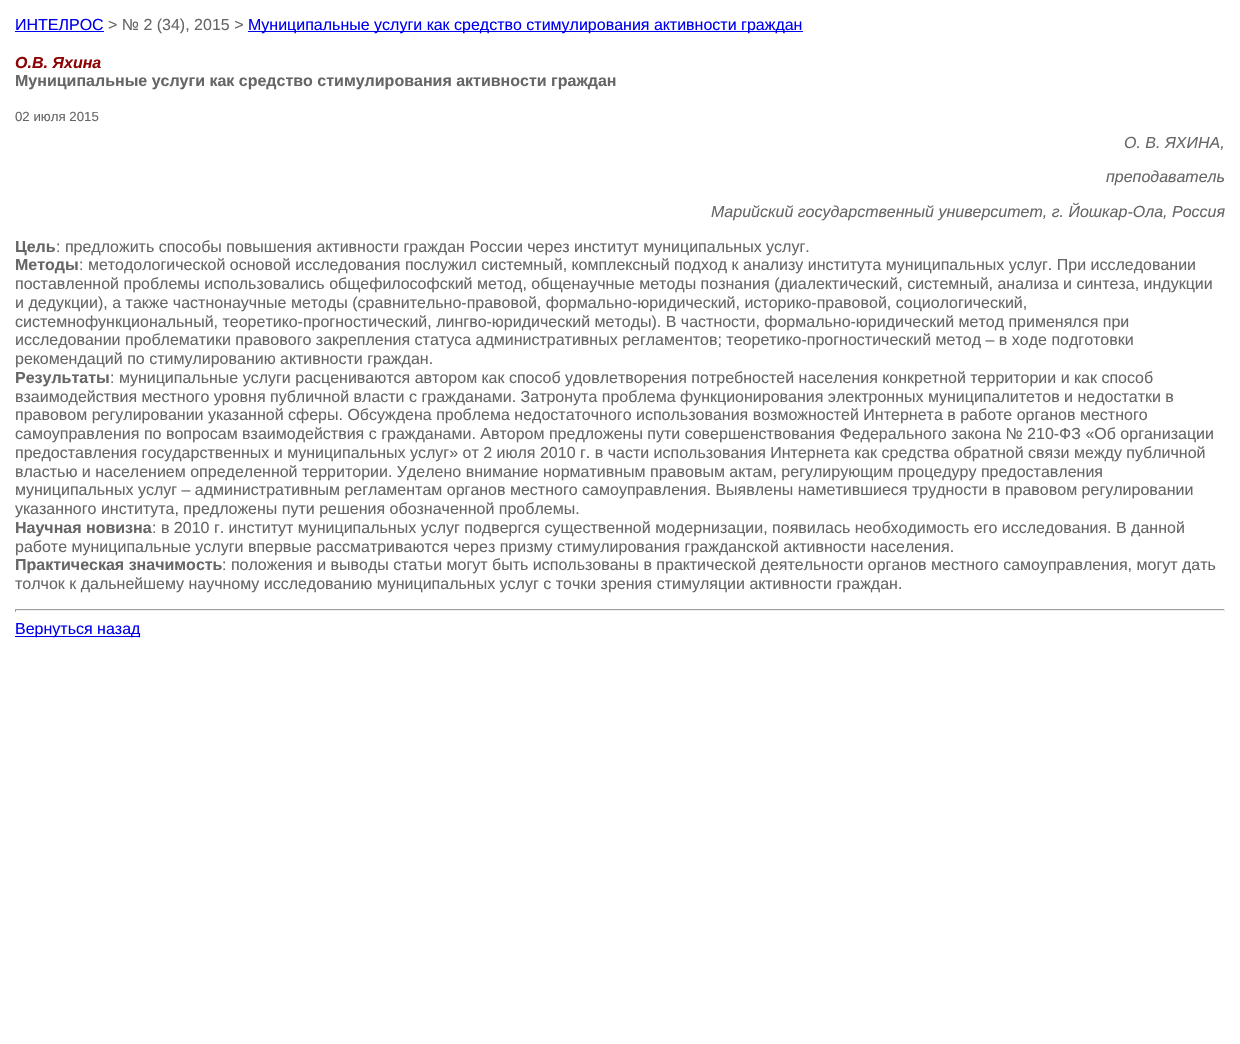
#include "include/core/SkBlurTypes.h"
#include "include/core/SkCanvas.h"
#include "include/core/SkData.h"
#include "include/core/SkFont.h"
#include "include/core/SkFontMgr.h"
#include "include/core/SkImage.h"
#include "include/core/SkMaskFilter.h"
#include "include/core/SkPaint.h"
#include "include/core/SkPathBuilder.h"
#include "include/core/SkTextBlob.h"
#include "include/effects/SkDashPathEffect.h"
#include "include/effects/SkGradientShader.h"
#include "include/utils/SkParsePath.h"

extern sk_sp<SkFontMgr> fontMgr;

void draw(SkCanvas* canvas) {
    SkPaint p;
    p.setAntiAlias(true);
    auto font = [&](const char* family, int weight, float size, bool italic = false) {
        SkFontStyle style(weight, SkFontStyle::kNormal_Width,
            italic ? SkFontStyle::kItalic_Slant : SkFontStyle::kUpright_Slant);
        SkFont result(fontMgr->matchFamilyStyle(family, style), size);
        result.setSubpixel(true);
        return result;
    };
    canvas->clear(0xFFFFFFFF);
    auto font1 = font("Liberation Sans", 400, 16);
    p.setColor(0xFF0000EE);
    canvas->drawString("ИНТЕЛРОС", 15, 30, font1, p);
    canvas->drawRect(SkRect::MakeLTRB(15, 31, 104, 32), p);
    p.setColor(0xFF666666);
    canvas->drawString("> № 2 (34), 2015 >", 108, 30, font1, p);
    p.setColor(0xFF0000EE);
    canvas->drawRect(SkRect::MakeLTRB(248, 31, 803, 32), p);
    canvas->drawString("Муниципальные услуги как средство стимулирования активности граждан", 248, 30, font1, p);
    auto font2 = font("Liberation Sans", 700, 16, true);
    p.setColor(0xFF8D0404);
    canvas->drawString("О.В. Яхина", 15, 68, font2, p);
    auto font3 = font("Liberation Sans", 700, 16);
    p.setColor(0xFF666666);
    canvas->drawString("Муниципальные услуги как средство стимулирования активности граждан", 15, 86, font3, p);
    auto font4 = font("Liberation Sans", 400, 13.25f);
    canvas->drawString("02 июля 2015", 15, 121, font4, p);
    auto font5 = font("Liberation Sans", 400, 16, true);
    {
        const struct { const char* s; float x, y; } items[] = {
            {"О. В. ЯХИНА,", 1124, 148},
            {"преподаватель", 1106, 182},
            {"Марийский государственный университет, г. Йошкар-Ола, Россия", 711, 217},
        };
        for (auto [s, x, y] : items) {
            canvas->drawString(s, x, y, font5, p);
        }
    }
    canvas->drawString("Цель", 15, 252, font3, p);
    canvas->drawString(": предложить способы повышения активности граждан России через институт муниципальных услуг.", 56, 252, font1, p);
    canvas->drawString("Методы", 15, 270, font3, p);
    {
        const struct { const char* s; float x, y; } items[] = {
            {": методологической основой исследования послужил системный, комплексный подход к анализу института муниципальных услуг. При исследовании", 79, 270},
            {"поставленной проблемы использовались общефилософский метод, общенаучные методы познания (диалектический, системный, анализа и синтеза, индукции", 15, 289},
            {"и дедукции), а также частнонаучные методы (сравнительно-правовой, формально-юридический, историко-правовой, социологический,", 15, 308},
            {"системнофункциональный, теоретико-прогностический, лингво-юридический методы). В частности, формально-юридический метод применялся при", 15, 327},
            {"исследовании проблематики правового закрепления статуса административных регламентов; теоретико-прогностический метод – в ходе подготовки", 15, 345},
            {"рекомендаций по стимулированию активности граждан.", 15, 364},
        };
        for (auto [s, x, y] : items) {
            canvas->drawString(s, x, y, font1, p);
        }
    }
    canvas->drawString("Результаты", 15, 383, font3, p);
    {
        const struct { const char* s; float x, y; } items[] = {
            {": муниципальные услуги расцениваются автором как способ удовлетворения потребностей населения конкретной территории и как способ", 110, 383},
            {"взаимодействия местного уровня публичной власти с гражданами. Затронута проблема функционирования электронных муниципалитетов и недостатки в", 15, 402},
            {"правовом регулировании указанной сферы. Обсуждена проблема недостаточного использования возможностей Интернета в работе органов местного", 15, 420},
            {"самоуправления по вопросам взаимодействия с гражданами. Автором предложены пути совершенствования Федерального закона № 210-ФЗ «Об организации", 15, 439},
            {"предоставления государственных и муниципальных услуг» от 2 июля 2010 г. в части использования Интернета как средства обратной связи между публичной", 15, 458},
            {"властью и населением определенной территории. Уделено внимание нормативным правовым актам, регулирующим процедуру предоставления", 15, 477},
            {"муниципальных услуг – административным регламентам органов местного самоуправления. Выявлены наметившиеся трудности в правовом регулировании", 15, 495},
            {"указанного института, предложены пути решения обозначенной проблемы.", 15, 514},
        };
        for (auto [s, x, y] : items) {
            canvas->drawString(s, x, y, font1, p);
        }
    }
    canvas->drawString("Научная новизна", 15, 533, font3, p);
    canvas->drawString(": в 2010 г. институт муниципальных услуг подвергся существенной модернизации, появилась необходимость его исследования. В данной", 152, 533, font1, p);
    canvas->drawString("работе муниципальные услуги впервые рассматриваются через призму стимулирования гражданской активности населения.", 15, 552, font1, p);
    canvas->drawString("Практическая значимость", 15, 570, font3, p);
    canvas->drawString(": положения и выводы статьи могут быть использованы в практической деятельности органов местного самоуправления, могут дать", 222, 570, font1, p);
    canvas->drawString("толчок к дальнейшему научному исследованию муниципальных услуг с точки зрения стимуляции активности граждан.", 15, 589, font1, p);
    {
        const struct { float l, t, r, b; SkColor color; } items[] = {
            {15, 609, 1225, 610, 0xFF9F9F9F},
            {1224, 609, 1225, 612, 0xFFEEEEEE},
            {15, 610, 1225, 611, 0xFFEEEEEE},
            {15, 609, 16, 612, 0xFF9F9F9F},
            {15, 636, 140, 637, 0xFF0000EE},
        };
        for (auto [l, t, r, b, color] : items) {
            p.setColor(color);
            canvas->drawRect(SkRect::MakeLTRB(l, t, r, b), p);
        }
    }
    canvas->drawString("Вернуться назад", 15, 634, font1, p);
}
